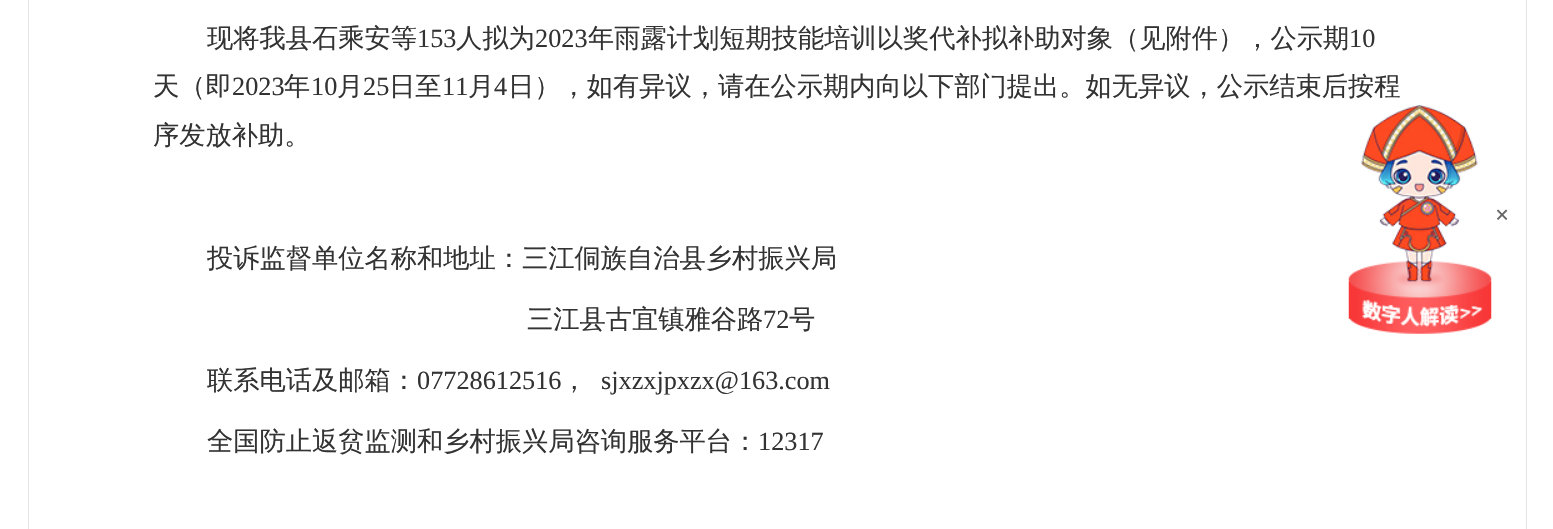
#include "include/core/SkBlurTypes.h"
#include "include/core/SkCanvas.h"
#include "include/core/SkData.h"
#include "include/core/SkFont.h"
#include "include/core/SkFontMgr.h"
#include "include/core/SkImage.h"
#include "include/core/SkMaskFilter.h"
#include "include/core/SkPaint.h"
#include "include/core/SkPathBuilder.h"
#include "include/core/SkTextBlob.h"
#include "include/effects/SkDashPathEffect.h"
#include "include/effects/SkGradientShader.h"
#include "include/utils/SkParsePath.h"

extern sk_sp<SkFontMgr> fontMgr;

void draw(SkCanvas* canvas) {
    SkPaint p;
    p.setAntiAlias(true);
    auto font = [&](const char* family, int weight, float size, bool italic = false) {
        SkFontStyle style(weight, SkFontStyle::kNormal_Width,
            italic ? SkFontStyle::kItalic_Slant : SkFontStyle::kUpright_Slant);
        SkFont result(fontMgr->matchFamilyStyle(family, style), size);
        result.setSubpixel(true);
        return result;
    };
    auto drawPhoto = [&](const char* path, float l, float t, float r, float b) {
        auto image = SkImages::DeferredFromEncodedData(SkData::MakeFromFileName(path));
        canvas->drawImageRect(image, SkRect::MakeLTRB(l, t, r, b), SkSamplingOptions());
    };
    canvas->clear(0xFFFFFFFF);
    p.setColor(0xFFE4E4E4);
    canvas->drawRect(SkRect::MakeLTRB(1526, 0, 1527, 529), p);
    canvas->drawRect(SkRect::MakeLTRB(28, 0, 29, 529), p);
    auto font1 = font("WenQuanYi Zen Hei", 500, 26.25f);
    p.setColor(0xFF333333);
    canvas->drawString("现将我县石乘安等", 207, 47, font1, p);
    auto font2 = font("Liberation Serif", 400, 26.25f);
    canvas->drawString("153", 417, 47, font2, p);
    canvas->drawString("人拟为", 456, 47, font1, p);
    canvas->drawString("2023", 535, 47, font2, p);
    canvas->drawString("年雨露计划短期技能培训以奖代补拟补助对象（见附件），公示期", 588, 47, font1, p);
    canvas->drawString("10", 1349, 47, font2, p);
    canvas->drawString("天（即", 153, 95, font1, p);
    canvas->drawString("2023", 232, 95, font2, p);
    canvas->drawString("年", 284, 95, font1, p);
    canvas->drawString("10", 311, 95, font2, p);
    canvas->drawString("月", 337, 95, font1, p);
    canvas->drawString("25", 363, 95, font2, p);
    canvas->drawString("日至", 389, 95, font1, p);
    canvas->drawString("11", 442, 95, font2, p);
    canvas->drawString("月", 468, 95, font1, p);
    canvas->drawString("4", 494, 95, font2, p);
    {
        const struct { const char* s; float x, y; } items[] = {
            {"日），如有异议，请在公示期内向以下部门提出。如无异议，公示结束后按程", 508, 95},
            {"序发放补助。", 153, 144},
            {"投诉监督单位名称和地址：三江侗族自治县乡村振兴局", 207, 267},
            {"三江县古宜镇雅谷路", 527, 328},
        };
        for (auto [s, x, y] : items) {
            canvas->drawString(s, x, y, font1, p);
        }
    }
    canvas->drawString("72", 763, 328, font2, p);
    canvas->drawString("号", 789, 328, font1, p);
    canvas->drawString("联系电话及邮箱：", 207, 389, font1, p);
    canvas->drawString("07728612516", 417, 389, font2, p);
    canvas->drawString("，", 561, 389, font1, p);
    canvas->drawString("sjxzxjpxzx@163.com", 601, 389, font2, p);
    canvas->drawString("全国防止返贫监测和乡村振兴局咨询服务平台：", 207, 450, font1, p);
    canvas->drawString("12317", 758, 450, font2, p);
    drawPhoto("media/1.png", 1348, 105, 1492, 334);
    auto font3 = font("Liberation Serif", 700, 25);
    p.setColor(0xFF666666);
    canvas->drawString("×", 1495, 223, font3, p);
}
